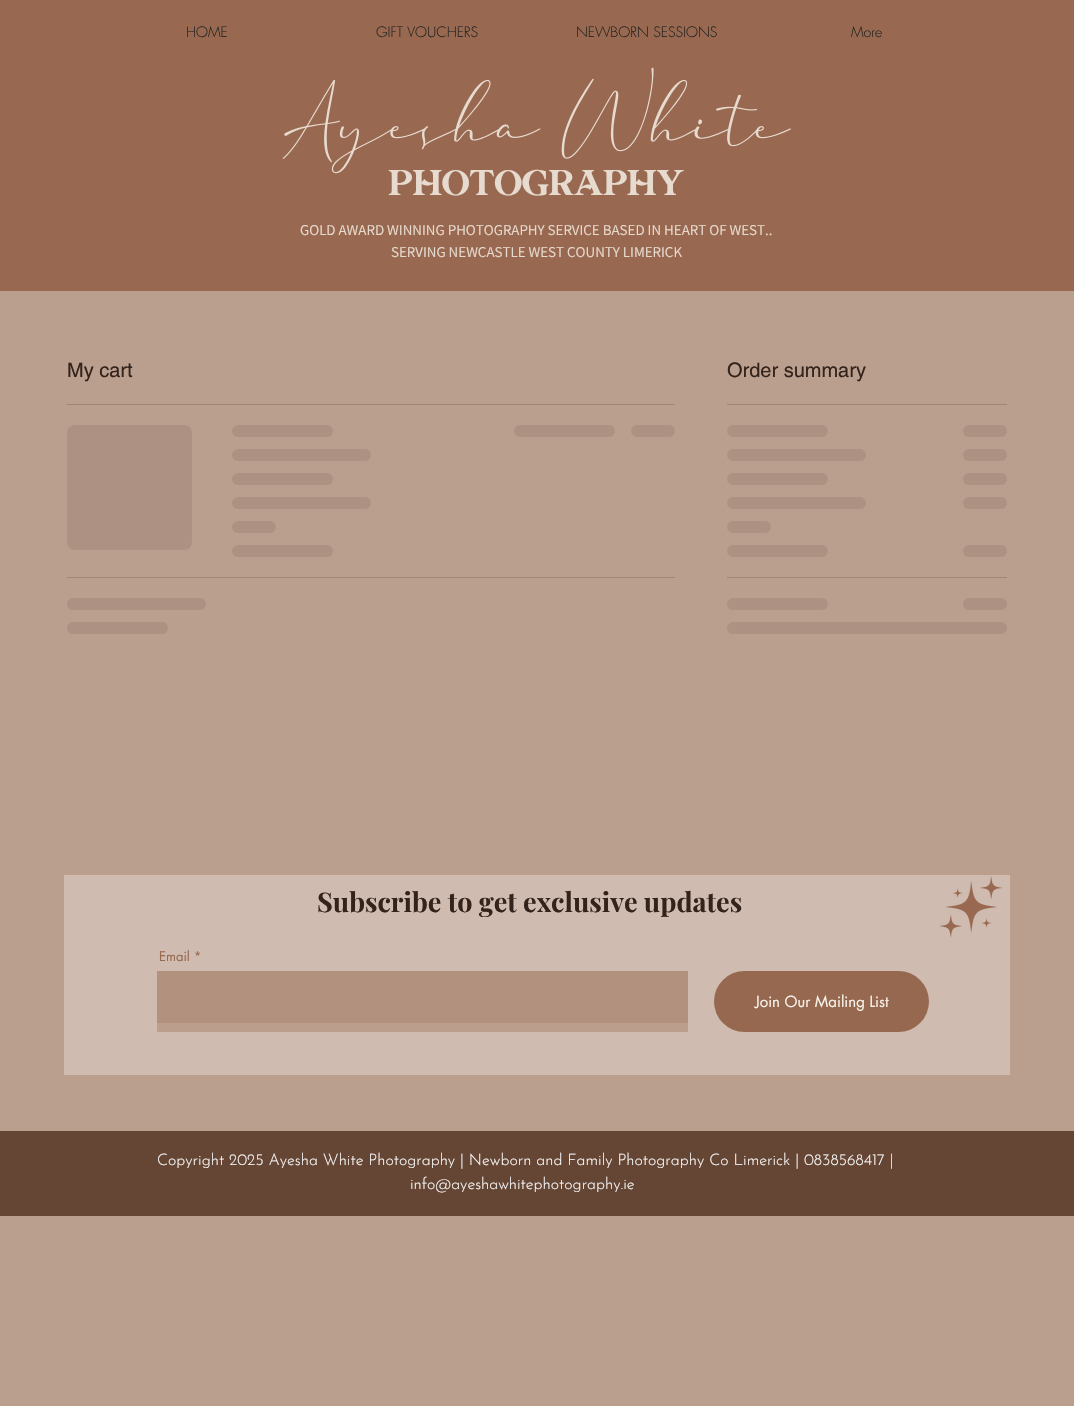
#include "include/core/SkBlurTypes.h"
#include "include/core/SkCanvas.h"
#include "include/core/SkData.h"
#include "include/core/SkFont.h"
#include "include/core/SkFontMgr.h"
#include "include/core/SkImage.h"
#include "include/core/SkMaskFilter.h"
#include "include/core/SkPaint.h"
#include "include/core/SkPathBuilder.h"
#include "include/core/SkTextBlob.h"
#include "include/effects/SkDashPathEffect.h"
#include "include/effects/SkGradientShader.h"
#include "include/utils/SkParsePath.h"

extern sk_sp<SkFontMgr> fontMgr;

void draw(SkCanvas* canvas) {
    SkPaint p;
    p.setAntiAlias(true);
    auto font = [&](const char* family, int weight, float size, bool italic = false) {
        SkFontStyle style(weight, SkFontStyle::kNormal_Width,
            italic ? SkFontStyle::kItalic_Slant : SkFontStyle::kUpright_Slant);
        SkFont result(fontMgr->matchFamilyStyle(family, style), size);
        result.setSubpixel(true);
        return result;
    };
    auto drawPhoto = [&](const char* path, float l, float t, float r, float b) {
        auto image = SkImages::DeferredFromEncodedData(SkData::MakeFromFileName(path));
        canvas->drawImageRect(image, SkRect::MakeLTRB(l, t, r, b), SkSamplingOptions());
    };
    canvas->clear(0xFFBA9E8E);
    p.setColor(0xFF986950);
    canvas->drawRect(SkRect::MakeLTRB(0, 0, 1074, 291), p);
    auto font1 = font("futura", 300, 14);
    p.setColor(0xFF212121);
    {
        const struct { const char* s; float x, y; } items[] = {
            {"HOME", 186, 37},
            {"GIFT VOUCHERS", 376, 37},
            {"NEWBORN SESSIONS", 576, 37},
            {"More", 851, 37},
        };
        for (auto [s, x, y] : items) {
            canvas->drawString(s, x, y, font1, p);
        }
    }
    drawPhoto("media/1.png", 282, 67, 791, 174);
    auto font2 = font("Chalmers", 400, 40);
    p.setColor(0xFFE7DACF);
    canvas->drawString("PHOTOGRAPHY", 388, 195, font2, p);
    auto font3 = font("Assistant", 400, 15);
    canvas->drawString("GOLD AWARD WINNING PHOTOGRAPHY SERVICE BASED IN HEART OF WEST..", 300, 235, font3, p);
    canvas->drawString("SERVING NEWCASTLE WEST COUNTY LIMERICK", 391, 257, font3, p);
    p.setColor(0xFF9F8577);
    canvas->drawRect(SkRect::MakeLTRB(67, 404, 675, 405), p);
    auto font4 = font("helvetica", 400, 20);
    p.setColor(0xFF33231B);
    canvas->drawString("My cart", 67, 377, font4, p);
    {
        const SkColor colors[] = {0xFFAD9283, 0xFF9F8577, 0xFFAD9283};
        const float stops[] = {0.25f, 0.37f, 0.63f};
        const SkPoint ends[] = {{67, 488}, {567, 488}};
        p.setShader(SkGradientShader::MakeLinear(ends, colors, stops, 3, SkTileMode::kClamp));
        p.setAlpha(255);
    }
    canvas->drawRoundRect(SkRect::MakeLTRB(67, 425, 192, 550), 8, 8, p);
    {
        const SkColor colors[] = {0xFFAD9283, 0xFF9F8577, 0xFFAD9283};
        const float stops[] = {0.25f, 0.37f, 0.63f};
        const SkPoint ends[] = {{232, 431}, {636, 431}};
        p.setShader(SkGradientShader::MakeLinear(ends, colors, stops, 3, SkTileMode::kClamp));
        p.setAlpha(255);
    }
    canvas->drawRoundRect(SkRect::MakeLTRB(232, 425, 333, 437), 6, 6, p);
    {
        const SkColor colors[] = {0xFFAD9283, 0xFF9F8577, 0xFFAD9283};
        const float stops[] = {0.25f, 0.37f, 0.63f};
        const SkPoint ends[] = {{232, 455}, {788, 455}};
        p.setShader(SkGradientShader::MakeLinear(ends, colors, stops, 3, SkTileMode::kClamp));
        p.setAlpha(255);
    }
    canvas->drawRoundRect(SkRect::MakeLTRB(232, 449, 371, 461), 6, 6, p);
    {
        const SkColor colors[] = {0xFFAD9283, 0xFF9F8577, 0xFFAD9283};
        const float stops[] = {0.25f, 0.37f, 0.63f};
        const SkPoint ends[] = {{232, 479}, {636, 479}};
        p.setShader(SkGradientShader::MakeLinear(ends, colors, stops, 3, SkTileMode::kClamp));
        p.setAlpha(255);
    }
    canvas->drawRoundRect(SkRect::MakeLTRB(232, 473, 333, 485), 6, 6, p);
    {
        const SkColor colors[] = {0xFFAD9283, 0xFF9F8577, 0xFFAD9283};
        const float stops[] = {0.25f, 0.37f, 0.63f};
        const SkPoint ends[] = {{232, 503}, {788, 503}};
        p.setShader(SkGradientShader::MakeLinear(ends, colors, stops, 3, SkTileMode::kClamp));
        p.setAlpha(255);
    }
    canvas->drawRoundRect(SkRect::MakeLTRB(232, 497, 371, 509), 6, 6, p);
    {
        const SkColor colors[] = {0xFFAD9283, 0xFF9F8577, 0xFFAD9283};
        const float stops[] = {0.25f, 0.37f, 0.63f};
        const SkPoint ends[] = {{232, 527}, {408, 527}};
        p.setShader(SkGradientShader::MakeLinear(ends, colors, stops, 3, SkTileMode::kClamp));
        p.setAlpha(255);
    }
    canvas->drawRoundRect(SkRect::MakeLTRB(232, 521, 276, 533), 6, 6, p);
    {
        const SkColor colors[] = {0xFFAD9283, 0xFF9F8577, 0xFFAD9283};
        const float stops[] = {0.25f, 0.37f, 0.63f};
        const SkPoint ends[] = {{232, 551}, {636, 551}};
        p.setShader(SkGradientShader::MakeLinear(ends, colors, stops, 3, SkTileMode::kClamp));
        p.setAlpha(255);
    }
    canvas->drawRoundRect(SkRect::MakeLTRB(232, 545, 333, 557), 6, 6, p);
    {
        const SkColor colors[] = {0xFFAD9283, 0xFF9F8577, 0xFFAD9283};
        const float stops[] = {0.25f, 0.37f, 0.63f};
        const SkPoint ends[] = {{514, 431}, {918, 431}};
        p.setShader(SkGradientShader::MakeLinear(ends, colors, stops, 3, SkTileMode::kClamp));
        p.setAlpha(255);
    }
    canvas->drawRoundRect(SkRect::MakeLTRB(514, 425, 615, 437), 6, 6, p);
    {
        const SkColor colors[] = {0xFFAD9283, 0xFF9F8577, 0xFFAD9283};
        const float stops[] = {0.25f, 0.37f, 0.63f};
        const SkPoint ends[] = {{631, 431}, {807, 431}};
        p.setShader(SkGradientShader::MakeLinear(ends, colors, stops, 3, SkTileMode::kClamp));
        p.setAlpha(255);
    }
    canvas->drawRoundRect(SkRect::MakeLTRB(631, 425, 675, 437), 6, 6, p);
    p.setShader(nullptr);
    p.setColor(0xFF9F8577);
    canvas->drawRect(SkRect::MakeLTRB(67, 577, 675, 578), p);
    {
        const SkColor colors[] = {0xFFAD9283, 0xFF9F8577, 0xFFAD9283};
        const float stops[] = {0.25f, 0.37f, 0.63f};
        const SkPoint ends[] = {{67, 604}, {623, 604}};
        p.setShader(SkGradientShader::MakeLinear(ends, colors, stops, 3, SkTileMode::kClamp));
        p.setAlpha(255);
    }
    canvas->drawRoundRect(SkRect::MakeLTRB(67, 598, 206, 610), 6, 6, p);
    {
        const SkColor colors[] = {0xFFAD9283, 0xFF9F8577, 0xFFAD9283};
        const float stops[] = {0.25f, 0.37f, 0.63f};
        const SkPoint ends[] = {{67, 628}, {471, 628}};
        p.setShader(SkGradientShader::MakeLinear(ends, colors, stops, 3, SkTileMode::kClamp));
        p.setAlpha(255);
    }
    canvas->drawRoundRect(SkRect::MakeLTRB(67, 622, 168, 634), 6, 6, p);
    p.setShader(nullptr);
    p.setColor(0xFF9F8577);
    canvas->drawRect(SkRect::MakeLTRB(727, 404, 1007, 405), p);
    p.setColor(0xFF33231B);
    canvas->drawString("Order summary", 727, 377, font4, p);
    {
        const SkColor colors[] = {0xFFAD9283, 0xFF9F8577, 0xFFAD9283};
        const float stops[] = {0.25f, 0.37f, 0.63f};
        const SkPoint ends[] = {{727, 431}, {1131, 431}};
        p.setShader(SkGradientShader::MakeLinear(ends, colors, stops, 3, SkTileMode::kClamp));
        p.setAlpha(255);
    }
    canvas->drawRoundRect(SkRect::MakeLTRB(727, 425, 828, 437), 6, 6, p);
    {
        const SkColor colors[] = {0xFFAD9283, 0xFF9F8577, 0xFFAD9283};
        const float stops[] = {0.25f, 0.37f, 0.63f};
        const SkPoint ends[] = {{963, 431}, {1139, 431}};
        p.setShader(SkGradientShader::MakeLinear(ends, colors, stops, 3, SkTileMode::kClamp));
        p.setAlpha(255);
    }
    canvas->drawRoundRect(SkRect::MakeLTRB(963, 425, 1007, 437), 6, 6, p);
    {
        const SkColor colors[] = {0xFFAD9283, 0xFF9F8577, 0xFFAD9283};
        const float stops[] = {0.25f, 0.37f, 0.63f};
        const SkPoint ends[] = {{727, 455}, {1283, 455}};
        p.setShader(SkGradientShader::MakeLinear(ends, colors, stops, 3, SkTileMode::kClamp));
        p.setAlpha(255);
    }
    canvas->drawRoundRect(SkRect::MakeLTRB(727, 449, 866, 461), 6, 6, p);
    {
        const SkColor colors[] = {0xFFAD9283, 0xFF9F8577, 0xFFAD9283};
        const float stops[] = {0.25f, 0.37f, 0.63f};
        const SkPoint ends[] = {{963, 455}, {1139, 455}};
        p.setShader(SkGradientShader::MakeLinear(ends, colors, stops, 3, SkTileMode::kClamp));
        p.setAlpha(255);
    }
    canvas->drawRoundRect(SkRect::MakeLTRB(963, 449, 1007, 461), 6, 6, p);
    {
        const SkColor colors[] = {0xFFAD9283, 0xFF9F8577, 0xFFAD9283};
        const float stops[] = {0.25f, 0.37f, 0.63f};
        const SkPoint ends[] = {{727, 479}, {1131, 479}};
        p.setShader(SkGradientShader::MakeLinear(ends, colors, stops, 3, SkTileMode::kClamp));
        p.setAlpha(255);
    }
    canvas->drawRoundRect(SkRect::MakeLTRB(727, 473, 828, 485), 6, 6, p);
    {
        const SkColor colors[] = {0xFFAD9283, 0xFF9F8577, 0xFFAD9283};
        const float stops[] = {0.25f, 0.37f, 0.63f};
        const SkPoint ends[] = {{963, 479}, {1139, 479}};
        p.setShader(SkGradientShader::MakeLinear(ends, colors, stops, 3, SkTileMode::kClamp));
        p.setAlpha(255);
    }
    canvas->drawRoundRect(SkRect::MakeLTRB(963, 473, 1007, 485), 6, 6, p);
    {
        const SkColor colors[] = {0xFFAD9283, 0xFF9F8577, 0xFFAD9283};
        const float stops[] = {0.25f, 0.37f, 0.63f};
        const SkPoint ends[] = {{727, 503}, {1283, 503}};
        p.setShader(SkGradientShader::MakeLinear(ends, colors, stops, 3, SkTileMode::kClamp));
        p.setAlpha(255);
    }
    canvas->drawRoundRect(SkRect::MakeLTRB(727, 497, 866, 509), 6, 6, p);
    {
        const SkColor colors[] = {0xFFAD9283, 0xFF9F8577, 0xFFAD9283};
        const float stops[] = {0.25f, 0.37f, 0.63f};
        const SkPoint ends[] = {{963, 503}, {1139, 503}};
        p.setShader(SkGradientShader::MakeLinear(ends, colors, stops, 3, SkTileMode::kClamp));
        p.setAlpha(255);
    }
    canvas->drawRoundRect(SkRect::MakeLTRB(963, 497, 1007, 509), 6, 6, p);
    {
        const SkColor colors[] = {0xFFAD9283, 0xFF9F8577, 0xFFAD9283};
        const float stops[] = {0.25f, 0.37f, 0.63f};
        const SkPoint ends[] = {{727, 527}, {903, 527}};
        p.setShader(SkGradientShader::MakeLinear(ends, colors, stops, 3, SkTileMode::kClamp));
        p.setAlpha(255);
    }
    canvas->drawRoundRect(SkRect::MakeLTRB(727, 521, 771, 533), 6, 6, p);
    {
        const SkColor colors[] = {0xFFAD9283, 0xFF9F8577, 0xFFAD9283};
        const float stops[] = {0.25f, 0.37f, 0.63f};
        const SkPoint ends[] = {{727, 551}, {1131, 551}};
        p.setShader(SkGradientShader::MakeLinear(ends, colors, stops, 3, SkTileMode::kClamp));
        p.setAlpha(255);
    }
    canvas->drawRoundRect(SkRect::MakeLTRB(727, 545, 828, 557), 6, 6, p);
    {
        const SkColor colors[] = {0xFFAD9283, 0xFF9F8577, 0xFFAD9283};
        const float stops[] = {0.25f, 0.37f, 0.63f};
        const SkPoint ends[] = {{963, 551}, {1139, 551}};
        p.setShader(SkGradientShader::MakeLinear(ends, colors, stops, 3, SkTileMode::kClamp));
        p.setAlpha(255);
    }
    canvas->drawRoundRect(SkRect::MakeLTRB(963, 545, 1007, 557), 6, 6, p);
    p.setShader(nullptr);
    p.setColor(0xFF9F8577);
    canvas->drawRect(SkRect::MakeLTRB(727, 577, 1007, 578), p);
    {
        const SkColor colors[] = {0xFFAD9283, 0xFF9F8577, 0xFFAD9283};
        const float stops[] = {0.25f, 0.37f, 0.63f};
        const SkPoint ends[] = {{727, 604}, {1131, 604}};
        p.setShader(SkGradientShader::MakeLinear(ends, colors, stops, 3, SkTileMode::kClamp));
        p.setAlpha(255);
    }
    canvas->drawRoundRect(SkRect::MakeLTRB(727, 598, 828, 610), 6, 6, p);
    {
        const SkColor colors[] = {0xFFAD9283, 0xFF9F8577, 0xFFAD9283};
        const float stops[] = {0.25f, 0.37f, 0.63f};
        const SkPoint ends[] = {{963, 604}, {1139, 604}};
        p.setShader(SkGradientShader::MakeLinear(ends, colors, stops, 3, SkTileMode::kClamp));
        p.setAlpha(255);
    }
    canvas->drawRoundRect(SkRect::MakeLTRB(963, 598, 1007, 610), 6, 6, p);
    {
        const SkColor colors[] = {0xFFAD9283, 0xFF9F8577, 0xFFAD9283};
        const float stops[] = {0.25f, 0.37f, 0.63f};
        const SkPoint ends[] = {{727, 628}, {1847, 628}};
        p.setShader(SkGradientShader::MakeLinear(ends, colors, stops, 3, SkTileMode::kClamp));
        p.setAlpha(255);
    }
    canvas->drawRoundRect(SkRect::MakeLTRB(727, 622, 1007, 634), 6, 6, p);
    p.setShader(nullptr);
    p.setColor(0xFFCFBBB0);
    canvas->drawRect(SkRect::MakeLTRB(64, 875, 1010, 1075), p);
    auto font5 = font("Playfair Display", 700, 27);
    p.setColor(0xFF33231B);
    canvas->drawString("Subscribe to get exclusive updates", 317, 912, font5, p);
    drawPhoto("media/2.png", 939, 876, 1003, 938);
    auto font6 = font("futura", 400, 13);
    p.setColor(0xFF986950);
    canvas->drawString("Email *", 159, 961, font6, p);
    p.setColor(0xFFB3917F);
    canvas->drawRect(SkRect::MakeLTRB(157, 971, 688, 1023), p);
    p.setColor(0xFFBC9E8C);
    canvas->drawRect(SkRect::MakeLTRB(157, 1023, 688, 1032), p);
    p.setColor(0xFF96684F);
    canvas->drawRoundRect(SkRect::MakeLTRB(714, 971, 929, 1032), 30.5f, 30.5f, p);
    auto font7 = font("futura", 400, 15);
    p.setColor(0xFFF8F3EC);
    canvas->drawString("Join Our Mailing List", 755, 1007, font7, p);
    p.setColor(0xFF654635);
    canvas->drawRect(SkRect::MakeLTRB(0, 1131, 1074, 1216), p);
    auto font8 = font("Josefin Sans", 100, 16);
    p.setColor(0xFFFAFAFA);
    canvas->drawString("Copyright 2025 Ayesha White Photography | Newborn and Family Photography Co Limerick | 0838568417 |", 157, 1165, font8, p);
    canvas->drawString("info@ayeshawhitephotography.ie", 410, 1189, font8, p);
}
